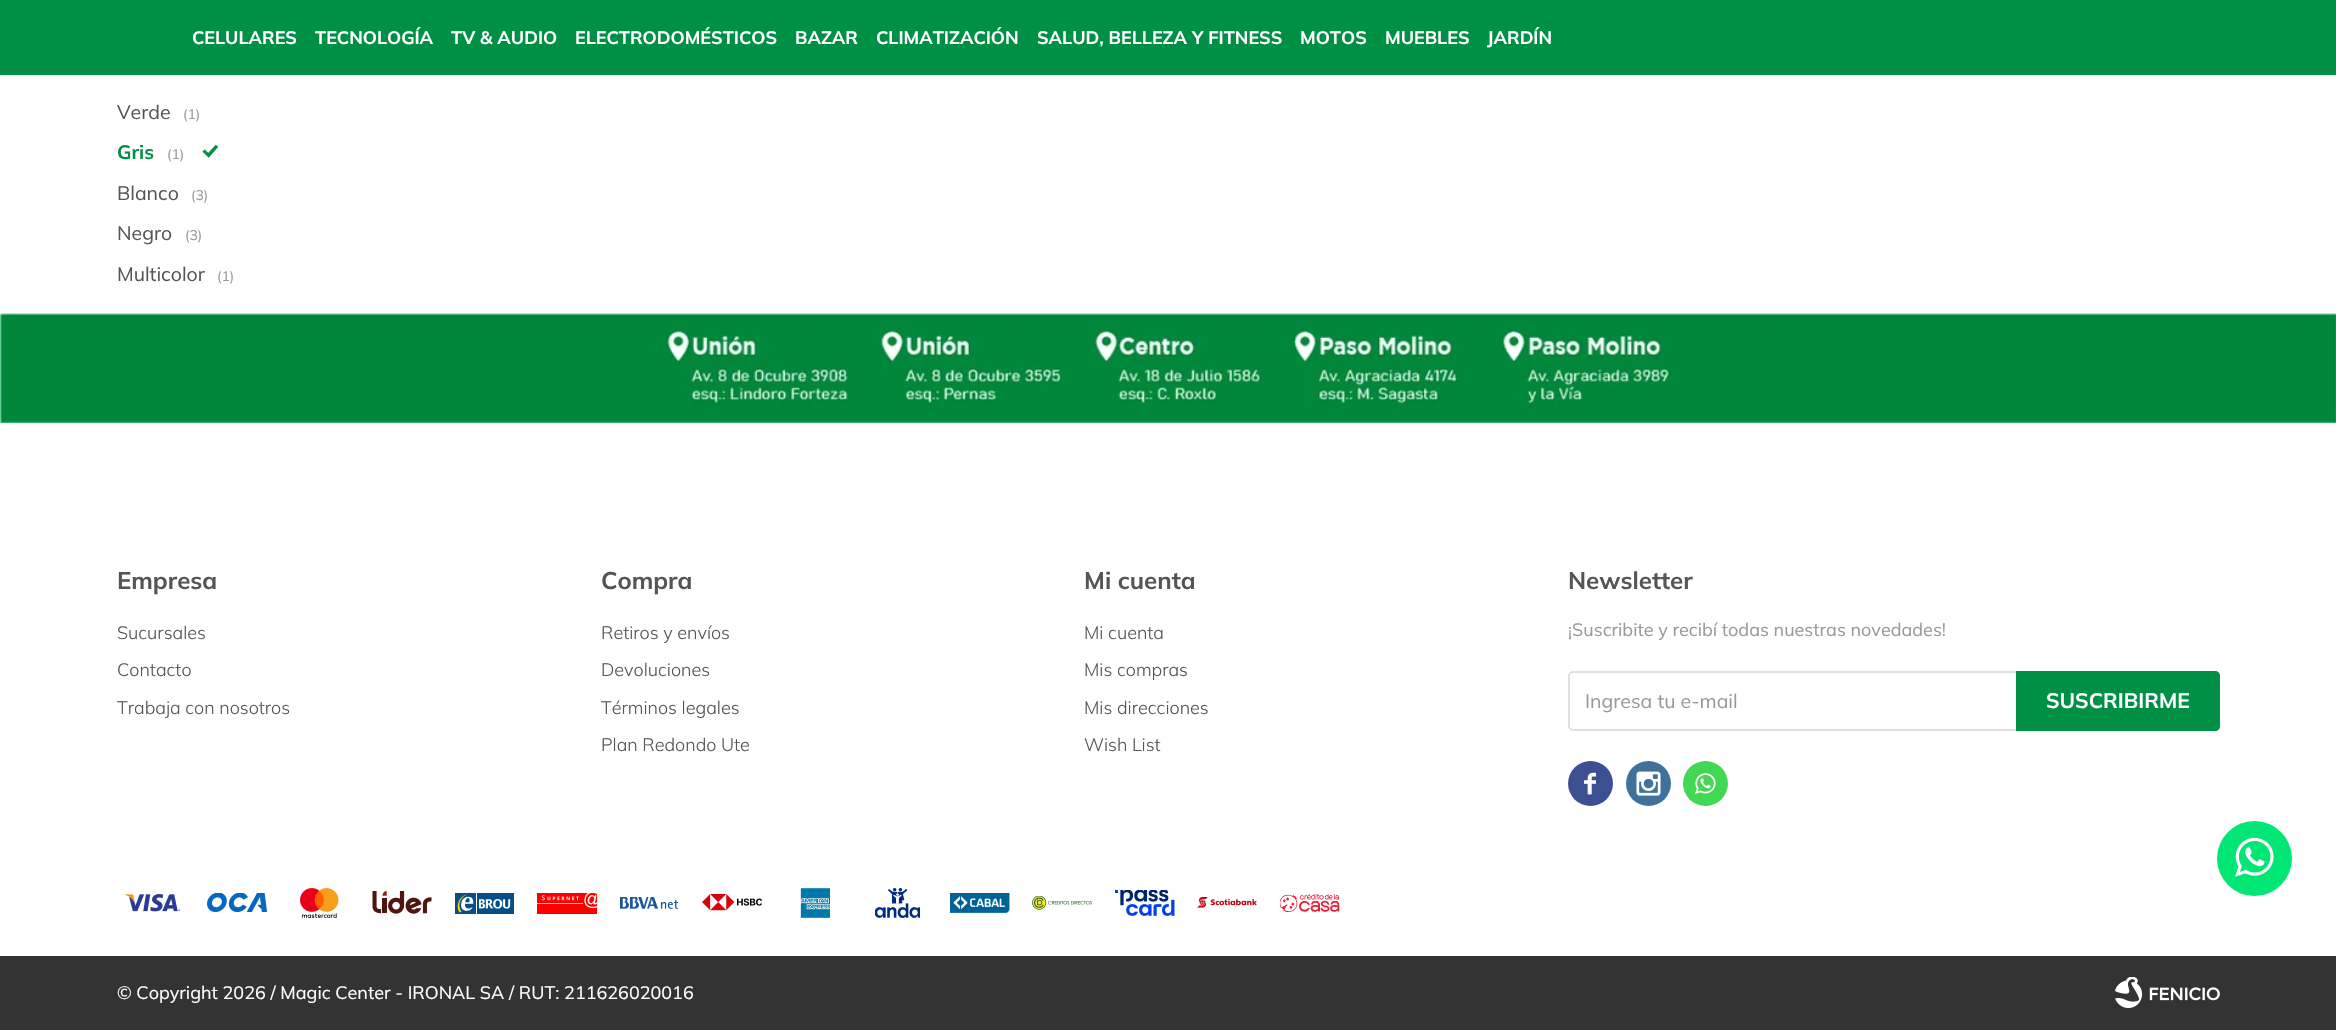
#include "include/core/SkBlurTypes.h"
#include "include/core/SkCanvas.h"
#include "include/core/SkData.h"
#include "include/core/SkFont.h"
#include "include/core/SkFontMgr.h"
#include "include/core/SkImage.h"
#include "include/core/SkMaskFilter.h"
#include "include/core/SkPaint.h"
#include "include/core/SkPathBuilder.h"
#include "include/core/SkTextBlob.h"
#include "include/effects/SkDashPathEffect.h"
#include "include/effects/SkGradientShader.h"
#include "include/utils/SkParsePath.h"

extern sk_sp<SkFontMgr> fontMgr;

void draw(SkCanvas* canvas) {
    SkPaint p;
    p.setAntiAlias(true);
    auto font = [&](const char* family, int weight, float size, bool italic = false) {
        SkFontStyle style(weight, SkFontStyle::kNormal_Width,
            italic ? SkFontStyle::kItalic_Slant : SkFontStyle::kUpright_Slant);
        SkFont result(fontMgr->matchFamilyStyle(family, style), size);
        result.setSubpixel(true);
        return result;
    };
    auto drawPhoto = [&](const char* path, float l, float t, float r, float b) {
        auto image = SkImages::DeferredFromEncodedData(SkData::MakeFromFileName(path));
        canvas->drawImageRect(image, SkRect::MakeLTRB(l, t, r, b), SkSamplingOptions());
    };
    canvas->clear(0xFFFFFFFF);
    p.setColor(0xFF009045);
    canvas->drawRect(SkRect::MakeLTRB(0, 0, 2336, 75), p);
    auto font1 = font("Mulish", 700, 18);
    p.setColor(0xFFFFFFFF);
    {
        const struct { const char* s; float x, y; } items[] = {
            {"CELULARES", 192, 44},
            {"TECNOLOGÍA", 315, 44},
            {"TV & AUDIO", 451, 44},
            {"ELECTRODOMÉSTICOS", 575, 44},
            {"BAZAR", 795, 44},
            {"CLIMATIZACIÓN", 876, 44},
            {"SALUD, BELLEZA Y FITNESS", 1037, 44},
            {"MOTOS", 1300, 44},
            {"MUEBLES", 1385, 44},
            {"JARDÍN", 1487, 44},
        };
        for (auto [s, x, y] : items) {
            canvas->drawString(s, x, y, font1, p);
        }
    }
    auto font2 = font("Mulish", 400, 19.5f);
    p.setColor(0xFF555555);
    canvas->drawString("Verde", 117, 119, font2, p);
    auto font3 = font("Mulish", 400, 14);
    p.setColor(0xFF999999);
    canvas->drawString("(1)", 183, 119, font3, p);
    auto font4 = font("Mulish", 700, 19.5f);
    p.setColor(0xFF009045);
    canvas->drawString("Gris", 117, 159, font4, p);
    p.setColor(0xFF999999);
    canvas->drawString("(1)", 167, 159, font3, p);
    drawPhoto("media/1.png", 202, 144, 219, 158);
    p.setColor(0xFF555555);
    canvas->drawString("Blanco", 117, 200, font2, p);
    p.setColor(0xFF999999);
    canvas->drawString("(3)", 191, 200, font3, p);
    p.setColor(0xFF555555);
    canvas->drawString("Negro", 117, 240, font2, p);
    p.setColor(0xFF999999);
    canvas->drawString("(3)", 185, 240, font3, p);
    p.setColor(0xFF555555);
    canvas->drawString("Multicolor", 117, 281, font2, p);
    p.setColor(0xFF999999);
    canvas->drawString("(1)", 217, 281, font3, p);
    drawPhoto("media/2.png", 0, 313, 2336, 423);
    auto font5 = font("Mulish", 700, 24);
    p.setColor(0xFF555555);
    canvas->drawString("Empresa", 117, 589, font5, p);
    auto font6 = font("Mulish", 300, 18);
    {
        const struct { const char* s; float x, y; } items[] = {
            {"Sucursales", 117, 639},
            {"Contacto", 117, 676},
            {"Trabaja con nosotros", 117, 714},
        };
        for (auto [s, x, y] : items) {
            canvas->drawString(s, x, y, font6, p);
        }
    }
    canvas->drawString("Compra", 601, 589, font5, p);
    {
        const struct { const char* s; float x, y; } items[] = {
            {"Retiros y envíos", 601, 639},
            {"Devoluciones", 601, 676},
            {"Términos legales", 601, 714},
            {"Plan Redondo Ute", 601, 751},
        };
        for (auto [s, x, y] : items) {
            canvas->drawString(s, x, y, font6, p);
        }
    }
    canvas->drawString("Mi cuenta", 1084, 589, font5, p);
    {
        const struct { const char* s; float x, y; } items[] = {
            {"Mi cuenta", 1084, 639},
            {"Mis compras", 1084, 676},
            {"Mis direcciones", 1084, 714},
            {"Wish List", 1084, 751},
        };
        for (auto [s, x, y] : items) {
            canvas->drawString(s, x, y, font6, p);
        }
    }
    canvas->drawString("Newsletter", 1568, 589, font5, p);
    auto font7 = font("Mulish", 400, 18);
    p.setColor(0xFF999999);
    canvas->drawString("¡Suscribite y recibí todas nuestras novedades!", 1568, 636, font7, p);
    p.setStyle(SkPaint::kStroke_Style);
    p.setStrokeWidth(2);
    p.setColor(0xFFE0E0E0);
    canvas->drawRoundRect(SkRect::MakeLTRB(1569, 672, 2219, 730), 4, 4, p);
    p.setStyle(SkPaint::kFill_Style);
    p.setColor(0xFF999999);
    canvas->drawString("Ingresa tu e-mail", 1585, 708, font2, p);
    p.setColor(0xFF009045);
    canvas->drawPath(SkPathBuilder().moveTo(2016, 671).lineTo(2215, 671).cubicTo(2218, 671, 2220, 673, 2220, 676).lineTo(2220, 726).cubicTo(2220, 729, 2218, 731, 2215, 731).lineTo(2016, 731).close().detach(), p);
    auto font8 = font("Mulish", 700, 21);
    p.setColor(0xFFFFFFFF);
    canvas->drawString("SUSCRIBIRME", 2046, 708, font8, p);
    p.setColor(0xFF3B4F92);
    canvas->drawCircle(1590.5f, 783.5f, 22.5f, p);
    drawPhoto("media/3.png", 1584, 772, 1596, 795);
    p.setColor(0xFF3F729B);
    canvas->drawCircle(1648.5f, 783.5f, 22.5f, p);
    drawPhoto("media/4.png", 1636, 771, 1661, 796);
    p.setColor(0xFF43D854);
    canvas->drawCircle(1705.5f, 783.5f, 22.5f, p);
    drawPhoto("media/5.png", 1695, 773, 1716, 794);
    drawPhoto("media/6.png", 125, 894, 180, 912);
    drawPhoto("media/7.png", 207, 893, 267, 912);
    drawPhoto("media/8.png", 300, 888, 339, 918);
    drawPhoto("media/9.png", 372, 891, 432, 914);
    drawPhoto("media/10.png", 455, 893, 514, 914);
    drawPhoto("media/11.png", 537, 893, 597, 914);
    drawPhoto("media/12.png", 620, 897, 679, 909);
    drawPhoto("media/13.png", 702, 894, 762, 911);
    drawPhoto("media/14.png", 800, 888, 830, 918);
    drawPhoto("media/15.png", 875, 888, 920, 918);
    drawPhoto("media/16.png", 950, 893, 1010, 913);
    drawPhoto("media/17.png", 1032, 896, 1092, 910);
    drawPhoto("media/18.png", 1115, 890, 1175, 916);
    drawPhoto("media/19.png", 1197, 897, 1257, 908);
    drawPhoto("media/20.png", 1280, 894, 1340, 912);
    p.setColor(0xFF333333);
    canvas->drawRect(SkRect::MakeLTRB(0, 956, 2336, 1030), p);
    p.setColor(0xFFFFFFFF);
    canvas->drawString("© Copyright 2026 / Magic Center - IRONAL SA / RUT: 211626020016", 117, 999, font7, p);
    drawPhoto("media/21.png", 2115, 977, 2220, 1008);
    p.setColor(0xFF01E675);
    canvas->drawCircle(2254.5f, 858.5f, 37.5f, p);
    drawPhoto("media/22.png", 2235, 837, 2274, 877);
}
